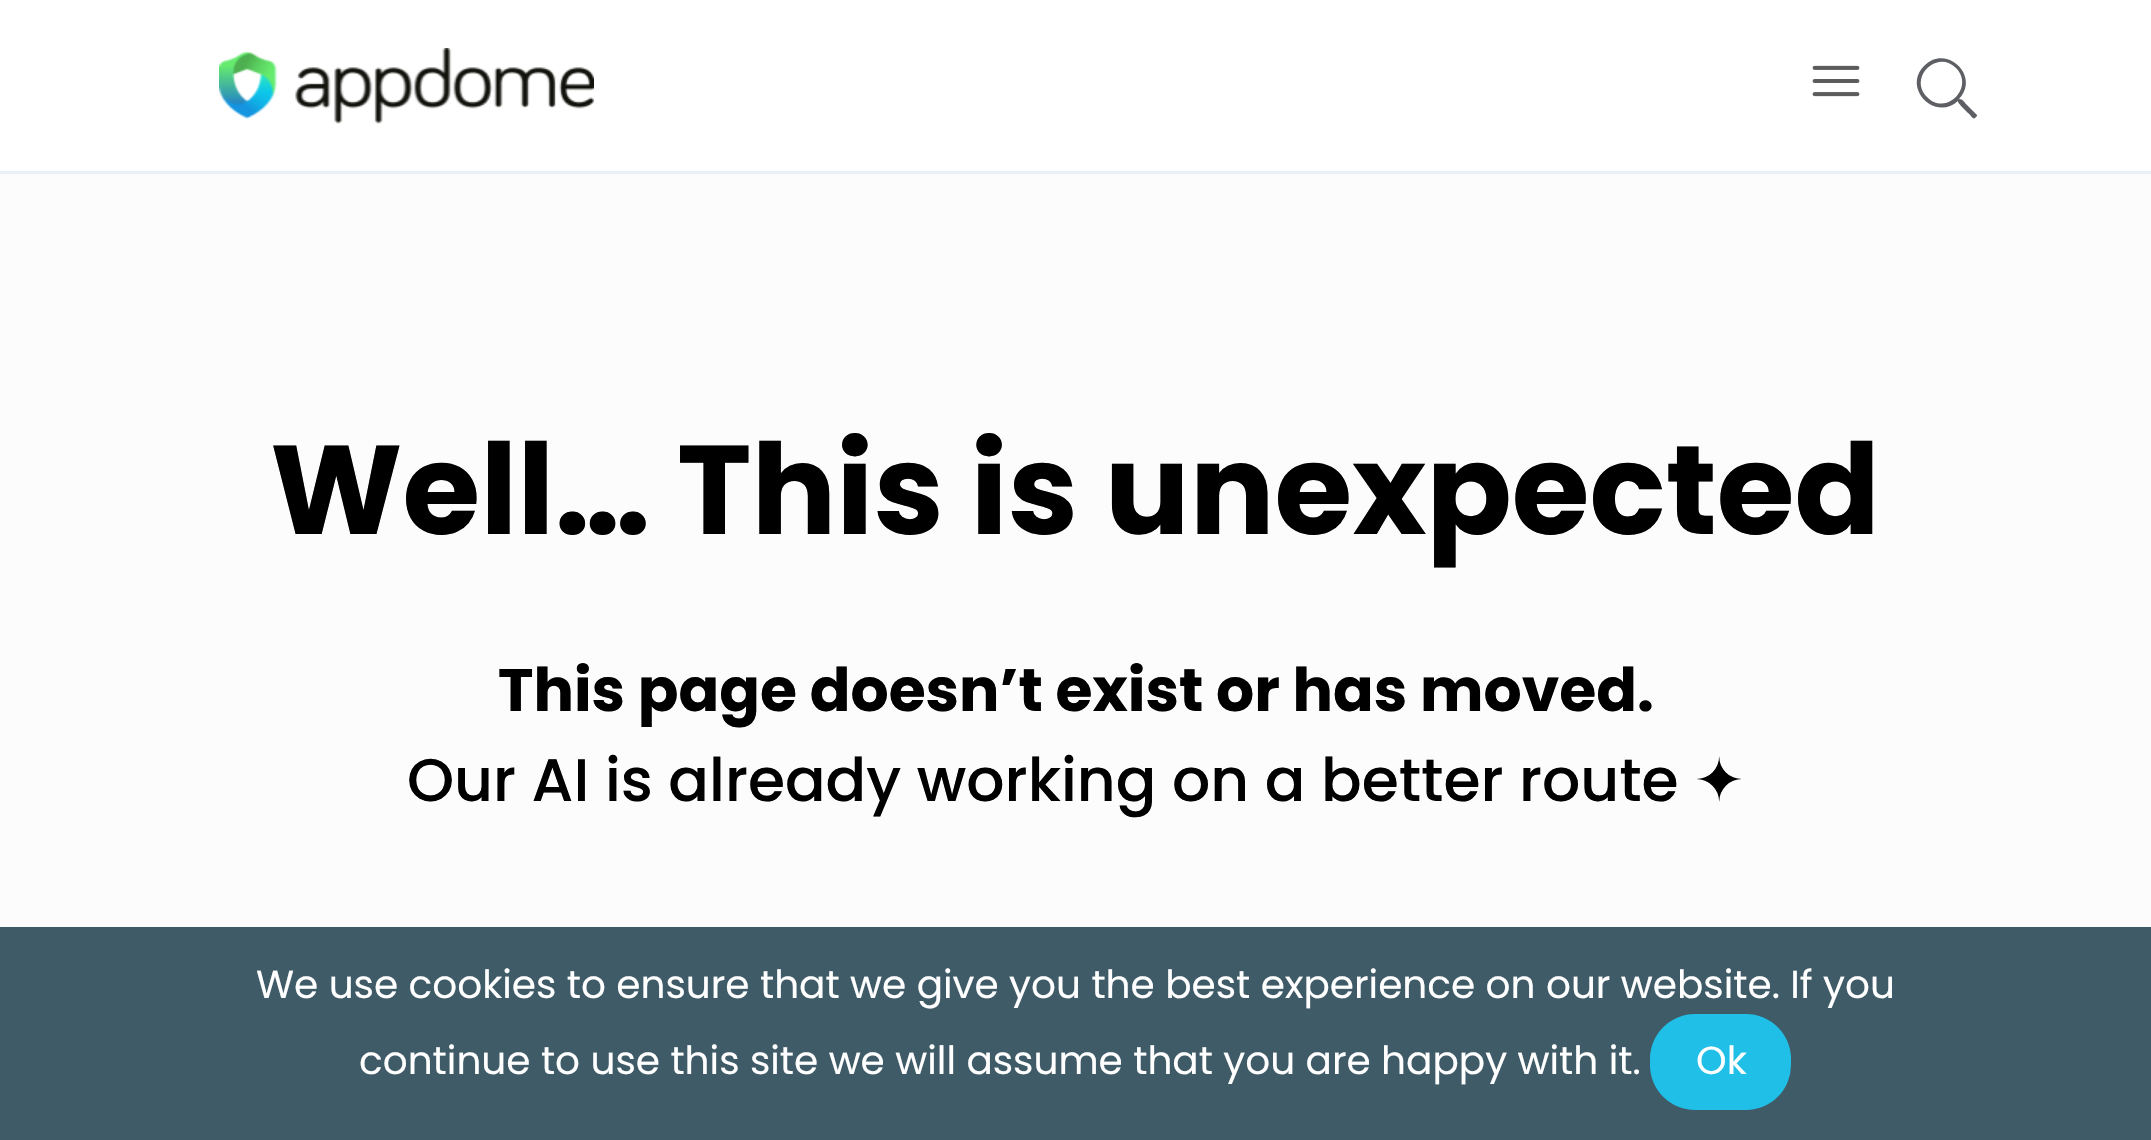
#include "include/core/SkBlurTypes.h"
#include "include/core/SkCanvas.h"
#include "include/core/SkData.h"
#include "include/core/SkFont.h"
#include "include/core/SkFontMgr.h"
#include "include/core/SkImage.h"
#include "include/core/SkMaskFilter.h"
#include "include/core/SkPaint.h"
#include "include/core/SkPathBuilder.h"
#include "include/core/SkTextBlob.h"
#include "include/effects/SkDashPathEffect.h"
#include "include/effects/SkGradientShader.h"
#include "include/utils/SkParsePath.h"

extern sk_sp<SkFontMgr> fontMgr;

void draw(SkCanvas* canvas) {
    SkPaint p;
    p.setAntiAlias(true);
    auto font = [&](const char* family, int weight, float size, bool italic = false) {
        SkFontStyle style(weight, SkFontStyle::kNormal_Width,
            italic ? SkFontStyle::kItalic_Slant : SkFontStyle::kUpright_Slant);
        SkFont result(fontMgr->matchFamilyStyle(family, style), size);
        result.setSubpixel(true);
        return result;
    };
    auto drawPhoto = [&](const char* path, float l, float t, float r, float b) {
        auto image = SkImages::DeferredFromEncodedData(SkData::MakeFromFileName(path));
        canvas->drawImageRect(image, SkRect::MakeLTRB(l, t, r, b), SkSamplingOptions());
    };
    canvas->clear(0xFFFFFFFF);
    p.setColor(0xFFEAF1F6);
    canvas->drawRect(SkRect::MakeLTRB(0, 171, 2151, 174), p);
    drawPhoto("media/1.png", 219, 48, 594, 124);
    drawPhoto("media/2.png", 1812, 65, 1860, 97);
    p.setColor(0xFF5D5F64);
    canvas->drawPath(SkPathBuilder().moveTo(1977, 115).lineTo(1977, 116).lineTo(1975, 118).cubicTo(1973, 120, 1970, 114, 1968, 113).lineTo(1961, 106).cubicTo(1959, 103, 1958, 103, 1958, 101).cubicTo(1935, 122, 1902, 88, 1924, 66).cubicTo(1946, 43, 1981, 76, 1959, 99).cubicTo(1963, 99, 1964, 102, 1967, 105).close().moveTo(1927, 97).cubicTo(1946, 117, 1975, 87, 1956, 68).cubicTo(1937, 49, 1908, 78, 1927, 97).close().detach(), p);
    p.setColor(0xFFFBFCFB);
    canvas->drawRect(SkRect::MakeLTRB(0, 174, 2151, 927), p);
    auto font1 = font("Poppins", 700, 126);
    p.setColor(0xFF000000);
    canvas->drawString("Well… This is unexpected", 270, 534, font1, p);
    auto font2 = font("Poppins", 700, 60);
    canvas->drawString("This page doesn’t exist or has moved.", 498, 711, font2, p);
    auto font3 = font("Poppins", 500, 60);
    canvas->drawString("Our AI is already working on a better route", 407, 801, font3, p);
    auto font4 = font("DejaVu Sans", 400, 60);
    canvas->drawString("✦", 1694, 801, font4, p);
    drawPhoto("media/3.png", 30, 855, 2121, 927);
    p.setColor(0xFF405B68);
    canvas->drawRect(SkRect::MakeLTRB(0, 927, 2151, 1140), p);
    auto font5 = font("Poppins", 400, 39);
    p.setColor(0xFFFFFFFF);
    canvas->drawString("We use cookies to ensure that we give you the best experience on our website. If you", 256, 998, font5, p);
    canvas->drawString("continue to use this site we will assume that you are happy with it.", 359, 1074, font5, p);
    p.setColor(0xFF1FBFE8);
    canvas->drawRoundRect(SkRect::MakeLTRB(1650, 1014, 1791, 1110), 45, 45, p);
    p.setColor(0xFFFFFFFF);
    canvas->drawString("Ok", 1696, 1074, font5, p);
}
